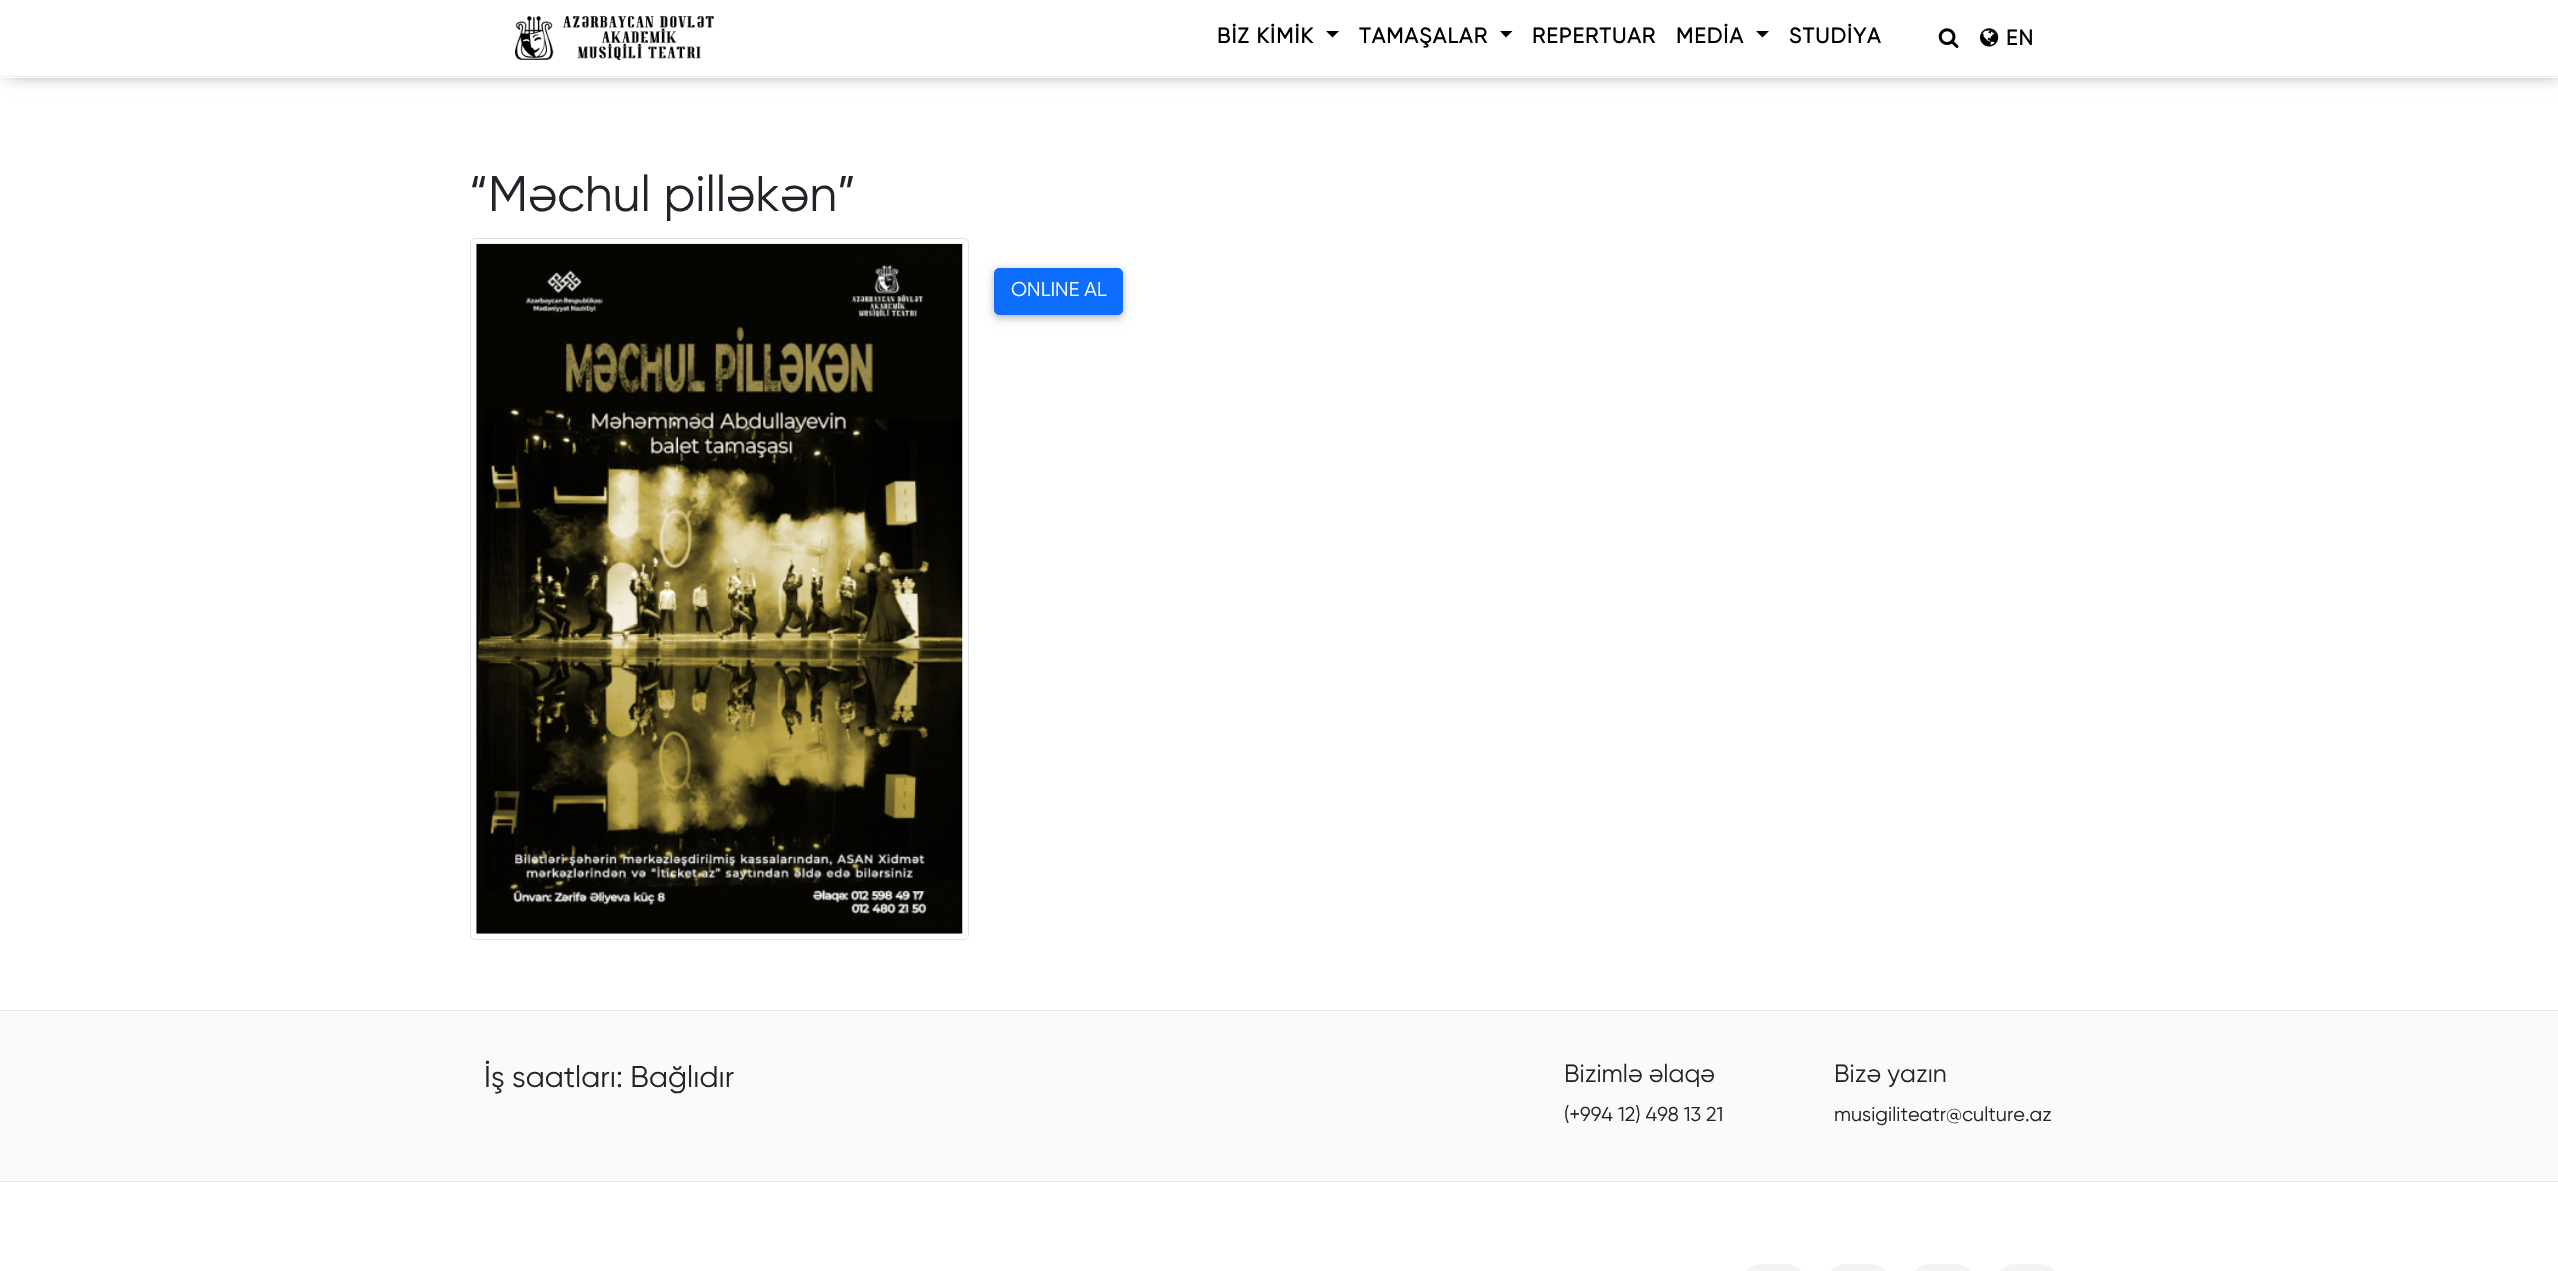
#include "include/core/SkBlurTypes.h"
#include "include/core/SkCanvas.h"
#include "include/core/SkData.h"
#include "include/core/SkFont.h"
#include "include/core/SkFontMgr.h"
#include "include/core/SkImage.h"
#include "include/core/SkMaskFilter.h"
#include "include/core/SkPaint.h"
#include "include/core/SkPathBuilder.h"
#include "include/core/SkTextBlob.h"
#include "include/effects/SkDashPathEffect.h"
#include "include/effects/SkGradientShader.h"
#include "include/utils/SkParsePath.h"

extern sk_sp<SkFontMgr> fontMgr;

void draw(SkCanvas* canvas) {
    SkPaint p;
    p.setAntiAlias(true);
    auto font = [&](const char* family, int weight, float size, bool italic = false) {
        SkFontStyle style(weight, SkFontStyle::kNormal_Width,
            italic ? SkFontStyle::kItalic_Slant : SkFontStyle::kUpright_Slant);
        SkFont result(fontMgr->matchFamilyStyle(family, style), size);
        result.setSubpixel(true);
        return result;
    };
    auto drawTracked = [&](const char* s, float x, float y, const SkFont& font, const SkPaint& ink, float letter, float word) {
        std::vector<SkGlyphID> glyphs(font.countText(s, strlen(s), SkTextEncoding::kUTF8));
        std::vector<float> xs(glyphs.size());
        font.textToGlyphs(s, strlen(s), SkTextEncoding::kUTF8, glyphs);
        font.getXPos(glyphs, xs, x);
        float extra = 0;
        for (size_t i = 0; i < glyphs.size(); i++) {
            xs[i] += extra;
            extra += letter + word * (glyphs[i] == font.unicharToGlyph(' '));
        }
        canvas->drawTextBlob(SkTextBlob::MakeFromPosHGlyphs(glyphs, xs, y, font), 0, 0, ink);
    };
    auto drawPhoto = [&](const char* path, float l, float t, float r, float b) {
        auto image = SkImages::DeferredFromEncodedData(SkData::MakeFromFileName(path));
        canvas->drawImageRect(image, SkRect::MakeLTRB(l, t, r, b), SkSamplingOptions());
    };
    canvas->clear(0xFFFFFFFF);
    p.setColor(0xE6000000);
    p.setMaskFilter(SkMaskFilter::MakeBlur(kNormal_SkBlurStyle, 10));
    canvas->drawRect(SkRect::MakeLTRB(8, -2, 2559, 68), p);
    p.setMaskFilter(nullptr);
    p.setColor(0xFFFFFFFF);
    canvas->drawRect(SkRect::MakeLTRB(0, 0, 2558, 78), p);
    p.setColor(0xFFEEEEEE);
    canvas->drawRect(SkRect::MakeLTRB(0, 76, 2558, 77), p);
    drawPhoto("media/1.png", 515, 16, 714, 60);
    auto font1 = font("Gilroy", 700, 21.25f);
    p.setColor(0xFF000000);
    drawTracked("BİZ KİMİK", 1217, 43, font1, p, 1.25f, 0);
    canvas->drawPath(SkPathBuilder().moveTo(1326, 31).lineTo(1339, 31).lineTo(1332.5f, 37.5f).close().detach(), p);
    drawTracked("TAMAŞALAR", 1359, 43, font1, p, 1.25f, 0);
    canvas->drawPath(SkPathBuilder().moveTo(1500, 31).lineTo(1512.5f, 31).lineTo(1506, 37.5f).close().detach(), p);
    drawTracked("REPERTUAR", 1532, 43, font1, p, 1.25f, 0);
    drawTracked("MEDİA", 1676, 43, font1, p, 1.25f, 0);
    canvas->drawPath(SkPathBuilder().moveTo(1756, 31).lineTo(1769, 31).lineTo(1762.5f, 37.5f).close().detach(), p);
    drawTracked("STUDİYA", 1789, 43, font1, p, 1.25f, 0);
    drawPhoto("media/2.png", 1938, 28, 1959, 48);
    drawPhoto("media/3.png", 1980, 28, 1999, 47);
    drawTracked("EN", 2006, 45, font1, p, 1.25f, 0);
    auto font2 = font("Gilroy", 400, 50);
    p.setColor(0xFF212529);
    canvas->drawString("“Məchul pilləkən”", 469, 211, font2, p);
    p.setStyle(SkPaint::kStroke_Style);
    p.setStrokeWidth(1);
    p.setColor(0xFFDEE2E6);
    canvas->drawRoundRect(SkRect::MakeLTRB(470.5f, 238.5f, 968.5f, 939.5f), 4.5f, 4.5f, p);
    drawPhoto("media/4.png", 476, 243, 963, 934);
    p.setStyle(SkPaint::kFill_Style);
    p.setColor(0x1A000000);
    p.setMaskFilter(SkMaskFilter::MakeBlur(kNormal_SkBlurStyle, 6));
    canvas->drawRoundRect(SkRect::MakeLTRB(994, 270, 1123, 318), 5, 5, p);
    p.setMaskFilter(nullptr);
    p.setColor(0x33000000);
    p.setMaskFilter(SkMaskFilter::MakeBlur(kNormal_SkBlurStyle, 3));
    canvas->drawRoundRect(SkRect::MakeLTRB(994, 270, 1123, 318), 5, 5, p);
    p.setMaskFilter(nullptr);
    p.setColor(0xFF0D6EFD);
    canvas->drawRoundRect(SkRect::MakeLTRB(994.5f, 268.5f, 1122.5f, 314.5f), 4.5f, 4.5f, p);
    p.setStyle(SkPaint::kStroke_Style);
    canvas->drawRoundRect(SkRect::MakeLTRB(994.5f, 268.5f, 1122.5f, 314.5f), 4.5f, 4.5f, p);
    auto font3 = font("Gilroy", 400, 20);
    p.setStyle(SkPaint::kFill_Style);
    p.setColor(0xFFFFFFFF);
    canvas->drawString("ONLINE AL", 1011, 296, font3, p);
    p.setColor(0xFFFAFAFA);
    canvas->drawRect(SkRect::MakeLTRB(0, 1011, 2558, 1181), p);
    p.setColor(0xFFE4E4E4);
    canvas->drawRect(SkRect::MakeLTRB(0, 1010, 2558, 1011), p);
    auto font4 = font("Gilroy", 400, 30);
    p.setColor(0xFF212529);
    canvas->drawString("İş saatları: Bağlıdır", 484, 1087, font4, p);
    auto font5 = font("Gilroy", 400, 25);
    canvas->drawString("Bizimlə əlaqə", 1564, 1082, font5, p);
    canvas->drawString("(+994 12) 498 13 21", 1564, 1121, font3, p);
    canvas->drawString("Bizə yazın", 1834, 1082, font5, p);
    canvas->drawString("musigiliteatr@culture.az", 1834, 1121, font3, p);
    p.setColor(0xFFE4E4E4);
    canvas->drawRect(SkRect::MakeLTRB(0, 1181, 2558, 1182), p);
    p.setColor(0xFFF3F3F3);
    canvas->drawRoundRect(SkRect::MakeLTRB(1741, 1264, 1806, 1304), 32.5f, 32.5f, p);
    canvas->drawRoundRect(SkRect::MakeLTRB(1826, 1264, 1891, 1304), 32.5f, 32.5f, p);
    canvas->drawRoundRect(SkRect::MakeLTRB(1910, 1264, 1975, 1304), 32.5f, 32.5f, p);
    canvas->drawRoundRect(SkRect::MakeLTRB(1995, 1264, 2060, 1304), 32.5f, 32.5f, p);
}
